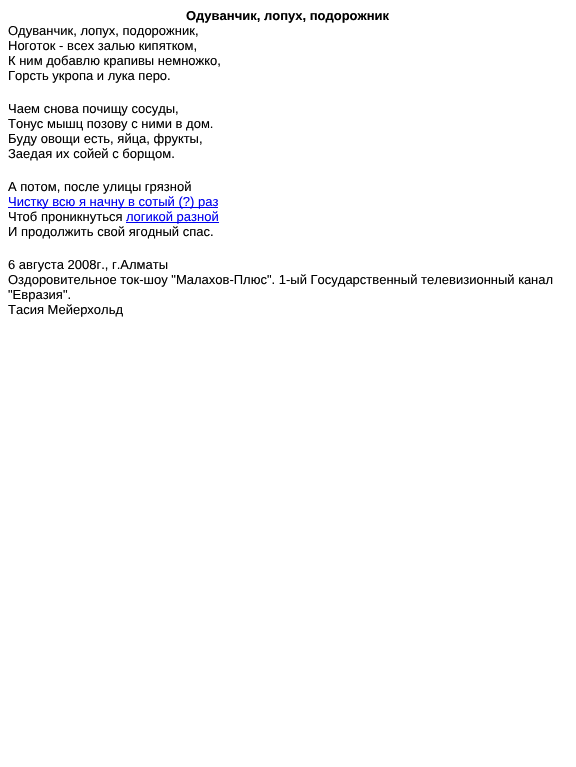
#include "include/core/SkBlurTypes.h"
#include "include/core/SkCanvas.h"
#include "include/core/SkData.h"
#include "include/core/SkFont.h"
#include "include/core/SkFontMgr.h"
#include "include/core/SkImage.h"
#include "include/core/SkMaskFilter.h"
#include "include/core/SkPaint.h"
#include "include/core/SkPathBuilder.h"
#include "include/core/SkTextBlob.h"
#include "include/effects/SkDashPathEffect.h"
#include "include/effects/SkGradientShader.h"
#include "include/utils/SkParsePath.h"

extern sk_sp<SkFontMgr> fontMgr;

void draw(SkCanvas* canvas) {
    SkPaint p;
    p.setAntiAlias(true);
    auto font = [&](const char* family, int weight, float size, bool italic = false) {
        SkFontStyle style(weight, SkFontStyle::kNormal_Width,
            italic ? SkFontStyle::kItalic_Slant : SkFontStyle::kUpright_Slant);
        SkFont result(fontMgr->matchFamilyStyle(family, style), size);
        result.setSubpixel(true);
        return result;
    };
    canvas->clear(0xFFFFFFFF);
    auto font1 = font("Liberation Sans", 700, 13);
    p.setColor(0xFF000000);
    canvas->drawString("Одуванчик, лопух, подорожник", 186, 20, font1, p);
    auto font2 = font("Liberation Sans", 400, 13);
    {
        const struct { const char* s; float x, y; } items[] = {
            {"Одуванчик, лопух, подорожник,", 8, 35},
            {"Ноготок - всех залью кипятком,", 8, 50},
            {"К ним добавлю крапивы немножко,", 8, 65},
            {"Горсть укропа и лука перо.", 8, 80},
            {"Чаем снова почищу сосуды,", 8, 113},
            {"Тонус мышц позову с ними в дом.", 8, 128},
            {"Буду овощи есть, яйца, фрукты,", 8, 143},
            {"Заедая их сойей с борщом.", 8, 158},
            {"А потом, после улицы грязной", 8, 191},
        };
        for (auto [s, x, y] : items) {
            canvas->drawString(s, x, y, font2, p);
        }
    }
    p.setColor(0xFF0000EE);
    canvas->drawRect(SkRect::MakeLTRB(8, 207, 218, 208), p);
    canvas->drawString("Чистку всю я начну в сотый (?) раз", 8, 206, font2, p);
    p.setColor(0xFF000000);
    canvas->drawString("Чтоб проникнуться", 8, 221, font2, p);
    p.setColor(0xFF0000EE);
    canvas->drawRect(SkRect::MakeLTRB(126, 222, 219, 223), p);
    canvas->drawString("логикой разной", 126, 221, font2, p);
    p.setColor(0xFF000000);
    {
        const struct { const char* s; float x, y; } items[] = {
            {"И продолжить свой ягодный спас.", 8, 236},
            {"6 августа 2008г., г.Алматы", 8, 269},
            {"Оздоровительное ток-шоу \"Малахов-Плюс\". 1-ый Государственный телевизионный канал", 8, 284},
            {"\"Евразия\".", 8, 299},
            {"Тасия Мейерхольд", 8, 314},
        };
        for (auto [s, x, y] : items) {
            canvas->drawString(s, x, y, font2, p);
        }
    }
}
